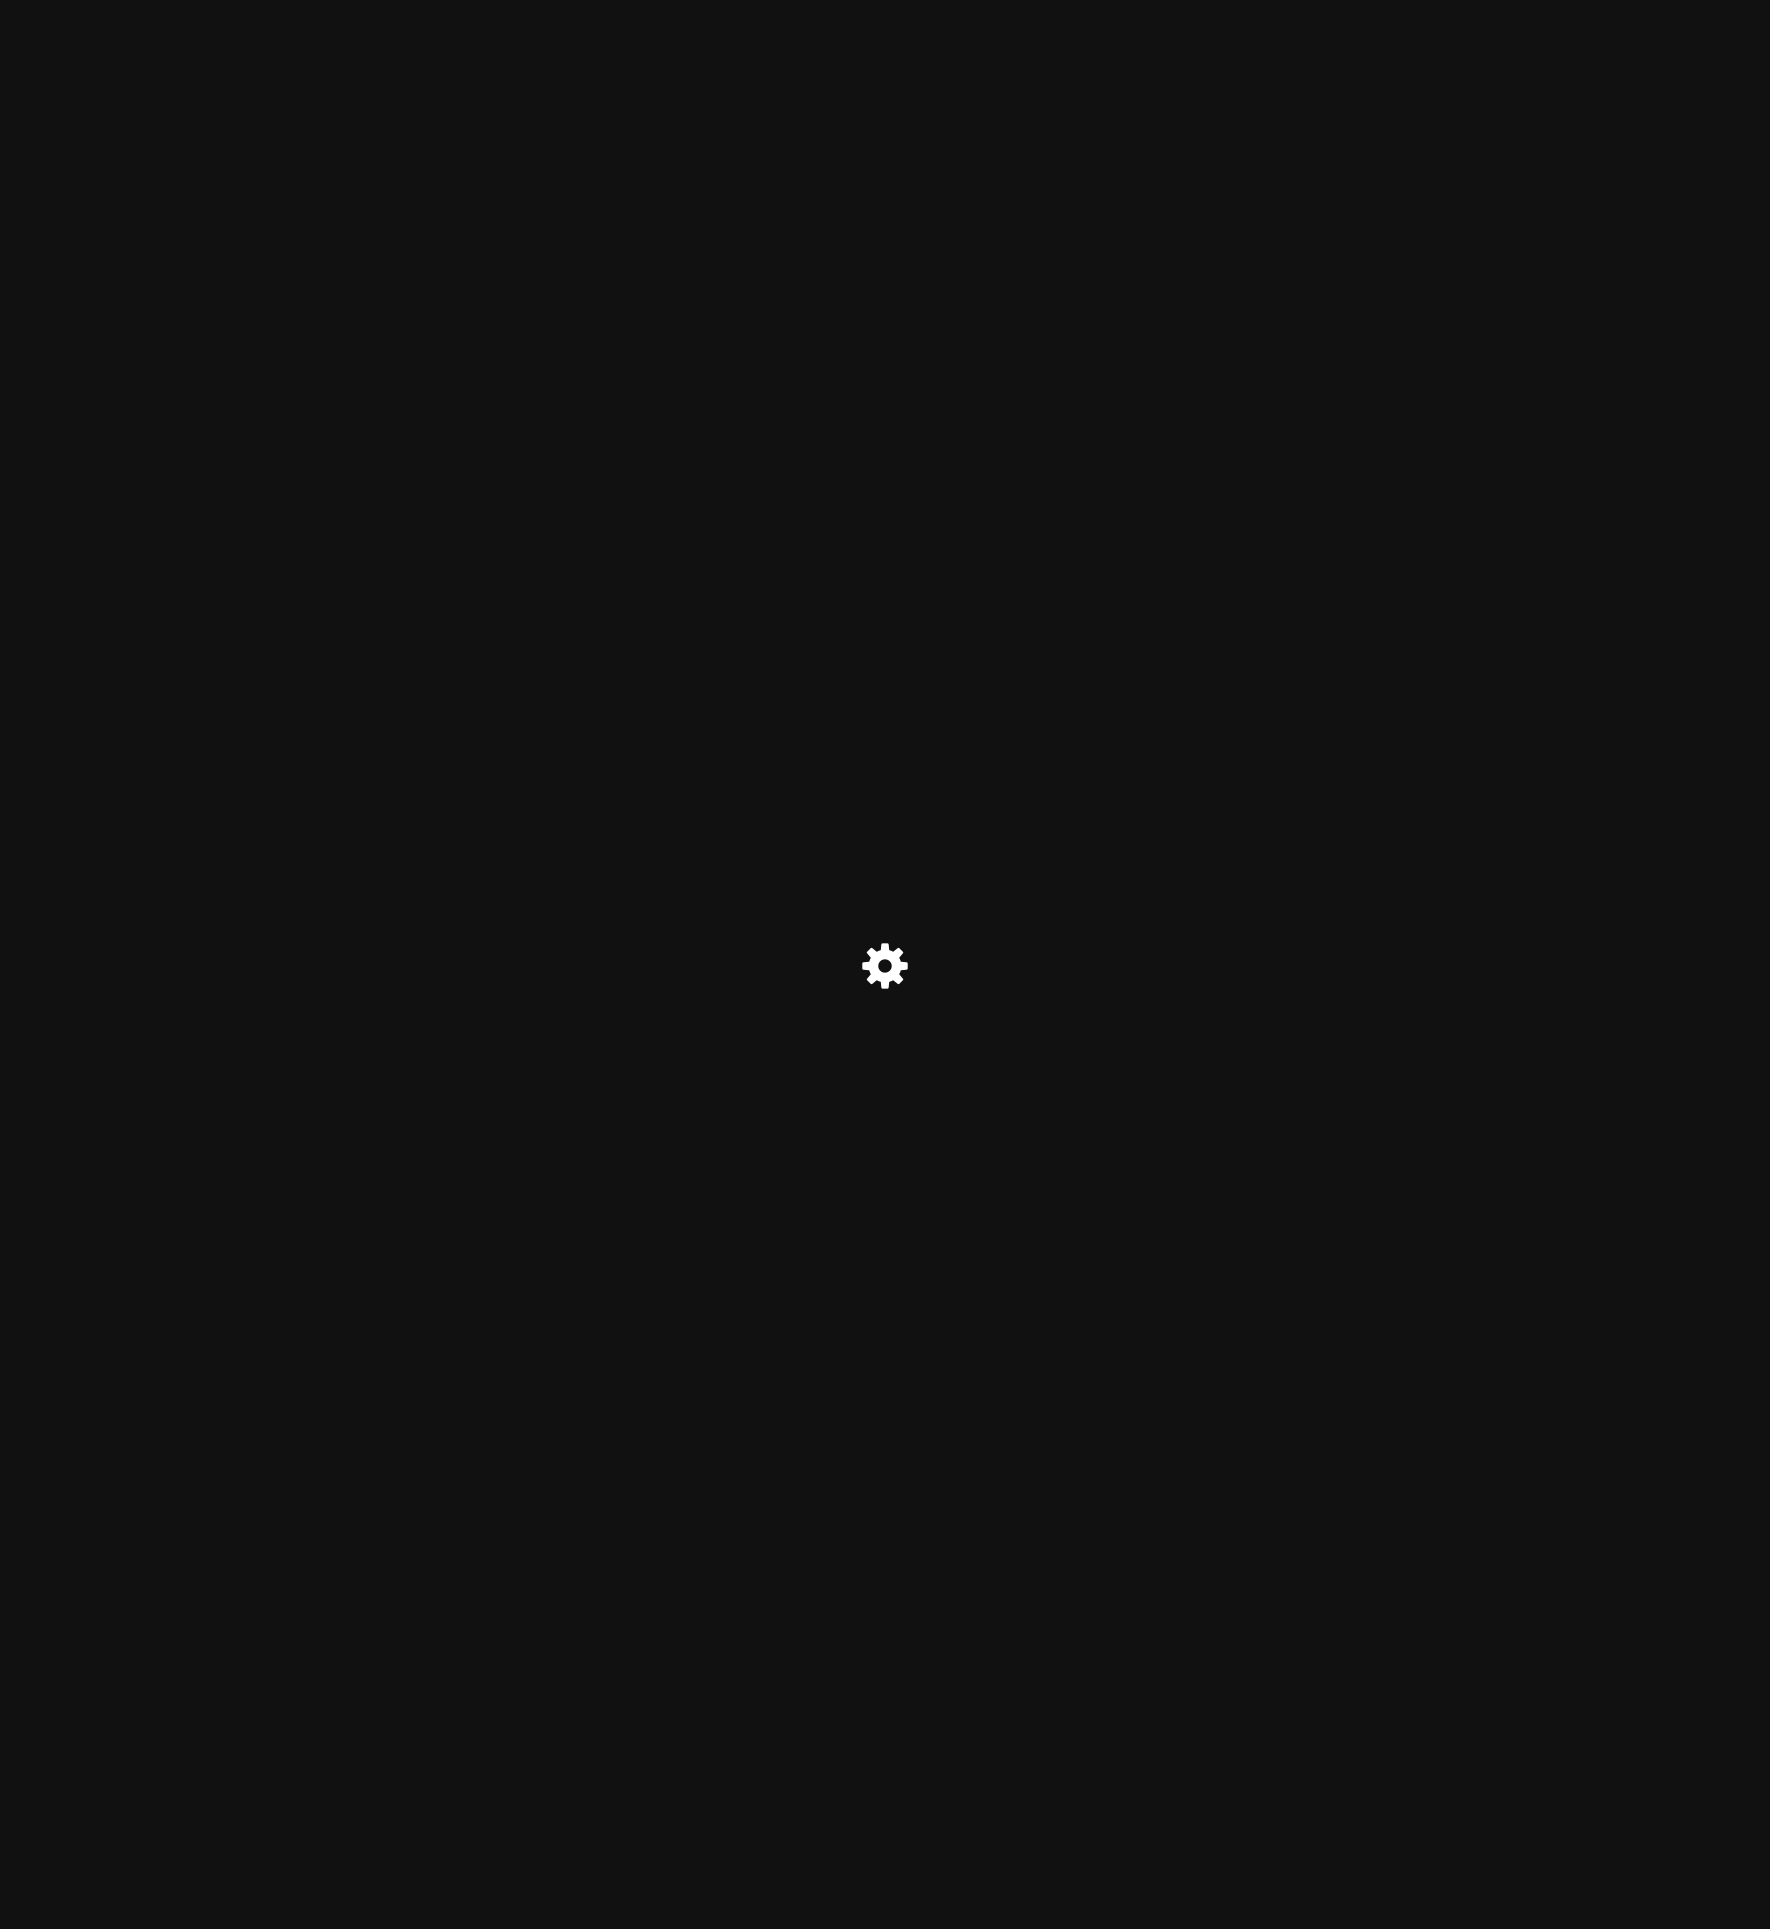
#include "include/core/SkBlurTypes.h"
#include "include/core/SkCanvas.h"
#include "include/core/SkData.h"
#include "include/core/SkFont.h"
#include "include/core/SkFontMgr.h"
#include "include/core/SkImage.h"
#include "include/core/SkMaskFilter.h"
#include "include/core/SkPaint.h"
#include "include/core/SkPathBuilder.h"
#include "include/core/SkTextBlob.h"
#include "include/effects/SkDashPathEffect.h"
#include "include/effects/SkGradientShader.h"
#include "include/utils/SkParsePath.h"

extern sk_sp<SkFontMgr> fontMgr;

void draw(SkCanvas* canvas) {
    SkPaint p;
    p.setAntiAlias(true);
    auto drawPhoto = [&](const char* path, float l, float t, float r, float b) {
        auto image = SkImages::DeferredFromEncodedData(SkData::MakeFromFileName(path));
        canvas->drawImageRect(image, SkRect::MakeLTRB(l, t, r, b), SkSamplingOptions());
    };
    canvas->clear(0xFF111111);
    drawPhoto("media/1.png", 862, 943, 908, 989);
}
